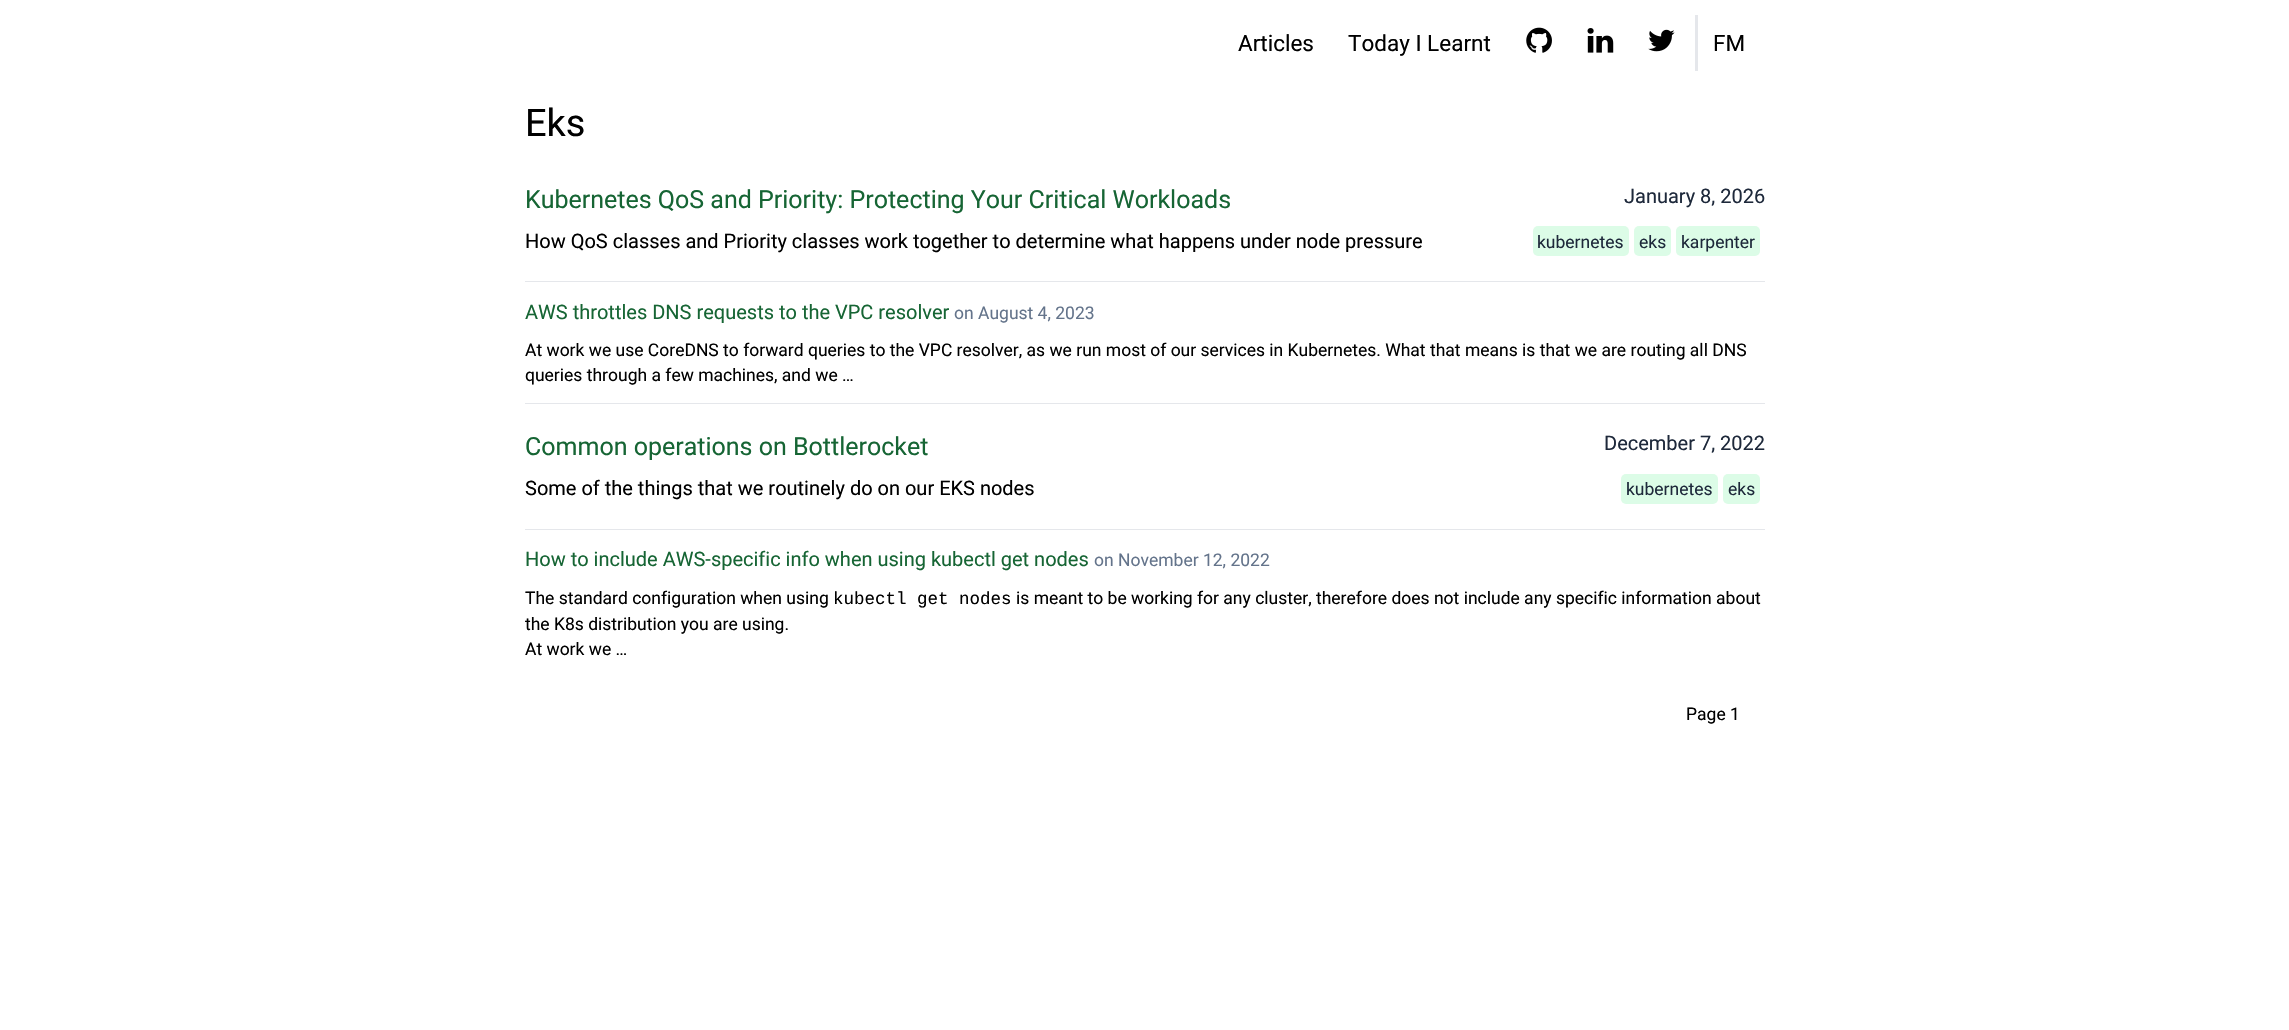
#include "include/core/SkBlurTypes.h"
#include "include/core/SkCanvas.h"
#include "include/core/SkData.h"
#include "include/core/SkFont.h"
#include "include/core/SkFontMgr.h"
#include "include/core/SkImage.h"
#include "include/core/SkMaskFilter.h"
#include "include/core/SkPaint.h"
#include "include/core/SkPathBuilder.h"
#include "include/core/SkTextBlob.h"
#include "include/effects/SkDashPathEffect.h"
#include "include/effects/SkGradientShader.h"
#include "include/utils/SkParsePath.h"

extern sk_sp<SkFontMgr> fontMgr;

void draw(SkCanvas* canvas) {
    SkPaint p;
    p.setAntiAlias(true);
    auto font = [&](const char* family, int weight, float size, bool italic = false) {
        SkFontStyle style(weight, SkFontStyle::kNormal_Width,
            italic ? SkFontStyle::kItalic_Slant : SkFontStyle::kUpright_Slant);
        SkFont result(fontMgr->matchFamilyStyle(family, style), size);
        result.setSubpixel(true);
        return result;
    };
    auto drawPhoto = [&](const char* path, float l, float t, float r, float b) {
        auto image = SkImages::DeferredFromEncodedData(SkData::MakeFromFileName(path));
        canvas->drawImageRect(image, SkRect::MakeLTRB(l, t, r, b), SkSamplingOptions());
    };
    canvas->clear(0xFFFFFFFF);
    auto font1 = font("Roboto", 400, 22.5f);
    p.setColor(0xFF000000);
    canvas->drawString("Articles", 1238, 51, font1, p);
    canvas->drawString("Today I Learnt", 1348, 51, font1, p);
    drawPhoto("media/1.png", 1526, 27, 1552, 53);
    drawPhoto("media/2.png", 1587, 28, 1614, 53);
    drawPhoto("media/3.png", 1648, 29, 1675, 52);
    canvas->drawString("FM", 1713, 51, font1, p);
    p.setColor(0xFFE5E7EB);
    canvas->drawRect(SkRect::MakeLTRB(1695, 15, 1698, 71), p);
    auto font2 = font("Roboto", 400, 38);
    p.setColor(0xFF000000);
    canvas->drawString("Eks", 525, 136, font2, p);
    auto font3 = font("Roboto", 400, 25);
    p.setColor(0xFF166534);
    canvas->drawString("Kubernetes QoS and Priority: Protecting Your Critical Workloads", 525, 208, font3, p);
    auto font4 = font("Roboto", 400, 20);
    p.setColor(0xFF1E293B);
    canvas->drawString("January 8, 2026", 1624, 203, font4, p);
    p.setColor(0xFF000000);
    canvas->drawString("How QoS classes and Priority classes work together to determine what happens under node pressure", 525, 248, font4, p);
    p.setColor(0xFFDCFCE7);
    canvas->drawRoundRect(SkRect::MakeLTRB(1533, 226, 1629, 256), 5, 5, p);
    auto font5 = font("Roboto", 400, 17.5f);
    p.setColor(0xFF1E293B);
    canvas->drawString("kubernetes", 1537, 248, font5, p);
    p.setColor(0xFFDCFCE7);
    canvas->drawRoundRect(SkRect::MakeLTRB(1634, 226, 1671, 256), 5, 5, p);
    p.setColor(0xFF1E293B);
    canvas->drawString("eks", 1639, 248, font5, p);
    p.setColor(0xFFDCFCE7);
    canvas->drawRoundRect(SkRect::MakeLTRB(1676, 226, 1760, 256), 5, 5, p);
    p.setColor(0xFF1E293B);
    canvas->drawString("karpenter", 1681, 248, font5, p);
    p.setColor(0xFFE5E7EB);
    canvas->drawRect(SkRect::MakeLTRB(525, 281, 1765, 282), p);
    p.setColor(0xFF166534);
    canvas->drawString("AWS throttles DNS requests to the VPC resolver", 525, 319, font4, p);
    p.setColor(0xFF64748B);
    canvas->drawString("on August 4, 2023", 954, 319, font5, p);
    p.setColor(0xFF000000);
    canvas->drawString("At work we use CoreDNS to forward queries to the VPC resolver, as we run most of our services in Kubernetes. What that means is that we are routing all DNS", 525, 356, font5, p);
    canvas->drawString("queries through a few machines, and we …", 525, 381, font5, p);
    p.setColor(0xFFE5E7EB);
    canvas->drawRect(SkRect::MakeLTRB(525, 403, 1765, 404), p);
    p.setColor(0xFF166534);
    canvas->drawString("Common operations on Bottlerocket", 525, 455, font3, p);
    p.setColor(0xFF1E293B);
    canvas->drawString("December 7, 2022", 1604, 450, font4, p);
    p.setColor(0xFF000000);
    canvas->drawString("Some of the things that we routinely do on our EKS nodes", 525, 495, font4, p);
    p.setColor(0xFFDCFCE7);
    canvas->drawRoundRect(SkRect::MakeLTRB(1621, 474, 1718, 504), 5, 5, p);
    p.setColor(0xFF1E293B);
    canvas->drawString("kubernetes", 1626, 495, font5, p);
    p.setColor(0xFFDCFCE7);
    canvas->drawRoundRect(SkRect::MakeLTRB(1723, 474, 1760, 504), 5, 5, p);
    p.setColor(0xFF1E293B);
    canvas->drawString("eks", 1728, 495, font5, p);
    p.setColor(0xFFE5E7EB);
    canvas->drawRect(SkRect::MakeLTRB(525, 529, 1765, 530), p);
    p.setColor(0xFF166534);
    canvas->drawString("How to include AWS-specific info when using kubectl get nodes", 525, 566, font4, p);
    p.setColor(0xFF64748B);
    canvas->drawString("on November 12, 2022", 1094, 566, font5, p);
    p.setColor(0xFF000000);
    canvas->drawString("The standard configuration when using", 525, 604, font5, p);
    auto font6 = font("Liberation Mono", 400, 17.5f);
    canvas->drawString("kubectl get nodes", 833, 604, font6, p);
    {
        const struct { const char* s; float x, y; } items[] = {
            {"is meant to be working for any cluster, therefore does not include any specific information about", 1016, 604},
            {"the K8s distribution you are using.", 525, 630},
            {"At work we …", 525, 655},
            {"Page 1", 1686, 720},
        };
        for (auto [s, x, y] : items) {
            canvas->drawString(s, x, y, font5, p);
        }
    }
}
